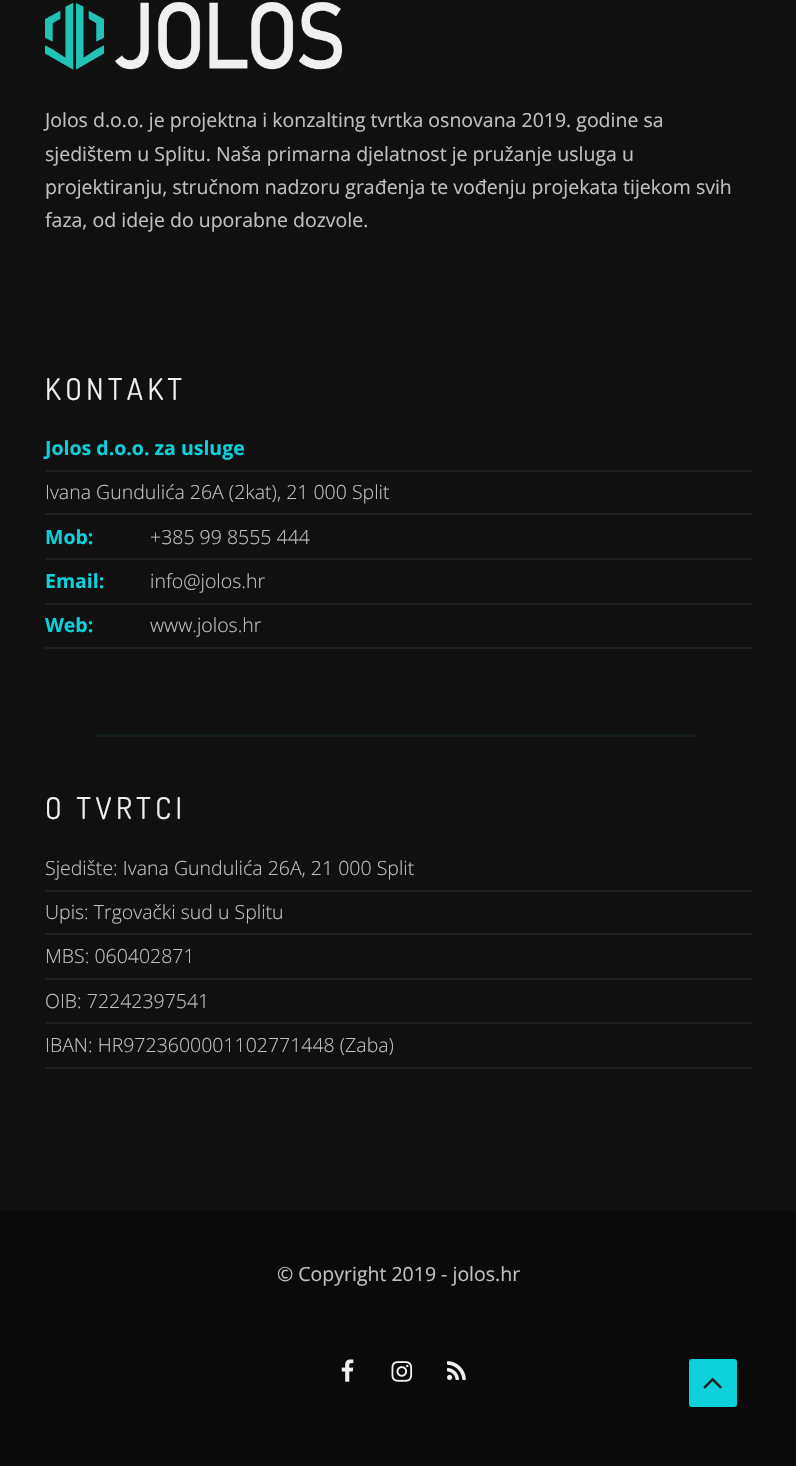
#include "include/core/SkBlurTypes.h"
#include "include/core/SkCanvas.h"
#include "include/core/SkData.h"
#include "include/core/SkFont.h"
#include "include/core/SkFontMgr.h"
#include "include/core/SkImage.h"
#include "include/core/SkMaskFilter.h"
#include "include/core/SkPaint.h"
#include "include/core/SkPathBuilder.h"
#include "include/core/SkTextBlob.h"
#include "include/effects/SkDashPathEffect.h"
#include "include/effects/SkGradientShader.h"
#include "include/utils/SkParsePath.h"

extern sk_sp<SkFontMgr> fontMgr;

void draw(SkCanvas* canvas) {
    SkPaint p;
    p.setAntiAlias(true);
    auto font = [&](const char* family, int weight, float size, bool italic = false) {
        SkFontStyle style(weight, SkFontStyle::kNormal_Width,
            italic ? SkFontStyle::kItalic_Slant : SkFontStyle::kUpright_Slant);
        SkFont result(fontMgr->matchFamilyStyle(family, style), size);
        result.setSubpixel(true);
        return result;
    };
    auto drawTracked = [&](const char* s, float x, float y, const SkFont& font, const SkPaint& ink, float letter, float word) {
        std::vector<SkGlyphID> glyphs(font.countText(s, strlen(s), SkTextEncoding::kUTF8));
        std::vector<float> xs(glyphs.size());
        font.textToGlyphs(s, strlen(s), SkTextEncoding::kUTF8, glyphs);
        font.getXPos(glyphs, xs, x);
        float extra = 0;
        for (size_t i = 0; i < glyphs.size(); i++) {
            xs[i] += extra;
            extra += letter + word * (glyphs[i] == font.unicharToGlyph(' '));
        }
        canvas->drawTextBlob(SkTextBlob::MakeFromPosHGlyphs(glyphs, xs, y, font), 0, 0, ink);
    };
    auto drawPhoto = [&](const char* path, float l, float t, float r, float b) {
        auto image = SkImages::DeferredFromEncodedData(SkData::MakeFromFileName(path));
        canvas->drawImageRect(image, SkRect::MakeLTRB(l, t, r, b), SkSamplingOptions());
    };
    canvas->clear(0xFF101010);
    drawPhoto("media/1.png", 45, 2, 342, 70);
    auto font1 = font("Open Sans", 400, 19.5f);
    p.setColor(0xFFC0C0C0);
    {
        const struct { const char* s; float x, y; } items[] = {
            {"Jolos d.o.o. je projektna i konzalting tvrtka osnovana 2019. godine sa", 45, 127},
            {"sjedištem u Splitu. Naša primarna djelatnost je pružanje usluga u", 45, 161},
            {"projektiranju, stručnom nadzoru građenja te vođenju projekata tijekom svih", 45, 194},
            {"faza, od ideje do uporabne dozvole.", 45, 227},
        };
        for (auto [s, x, y] : items) {
            canvas->drawString(s, x, y, font1, p);
        }
    }
    auto font2 = font("Dosis", 400, 30);
    p.setColor(0xFFF0F0F0);
    drawTracked("KONTAKT", 45, 400, font2, p, 4.5f, 0);
    p.setColor(0xFF202020);
    canvas->drawRect(SkRect::MakeLTRB(45, 470, 752, 472), p);
    auto font3 = font("Open Sans", 700, 19.5f);
    p.setColor(0xFF0CD0DA);
    canvas->drawString("Jolos d.o.o. za usluge", 45, 455, font3, p);
    p.setColor(0xFF202020);
    canvas->drawRect(SkRect::MakeLTRB(45, 513, 752, 515), p);
    auto font4 = font("Open Sans", 300, 19.5f);
    p.setColor(0xFFC0C0C0);
    canvas->drawString("Ivana Gundulića 26A (2kat), 21 000 Split", 45, 499, font4, p);
    p.setColor(0xFF202020);
    canvas->drawRect(SkRect::MakeLTRB(45, 558, 752, 560), p);
    p.setColor(0xFF0CD0DA);
    canvas->drawString("Mob:", 45, 544, font3, p);
    p.setColor(0xFFC0C0C0);
    canvas->drawString("+385 99 8555 444", 150, 544, font4, p);
    p.setColor(0xFF202020);
    canvas->drawRect(SkRect::MakeLTRB(45, 603, 752, 605), p);
    p.setColor(0xFF0CD0DA);
    canvas->drawString("Email:", 45, 588, font3, p);
    p.setColor(0xFFC0C0C0);
    canvas->drawString("info@jolos.hr", 150, 588, font4, p);
    p.setColor(0xFF202020);
    canvas->drawRect(SkRect::MakeLTRB(45, 647, 752, 649), p);
    p.setColor(0xFF0CD0DA);
    canvas->drawString("Web:", 45, 632, font3, p);
    p.setColor(0xFFC0C0C0);
    canvas->drawString("www.jolos.hr", 150, 632, font4, p);
    p.setColor(0xFFF0F0F0);
    drawTracked("O TVRTCI", 45, 819, font2, p, 4.5f, 0);
    p.setColor(0xFF202020);
    canvas->drawRect(SkRect::MakeLTRB(45, 890, 752, 892), p);
    p.setColor(0xFFC0C0C0);
    canvas->drawString("Sjedište: Ivana Gundulića 26A, 21 000 Split", 45, 875, font4, p);
    p.setColor(0xFF202020);
    canvas->drawRect(SkRect::MakeLTRB(45, 933, 752, 935), p);
    p.setColor(0xFFC0C0C0);
    canvas->drawString("Upis: Trgovački sud u Splitu", 45, 919, font4, p);
    p.setColor(0xFF202020);
    canvas->drawRect(SkRect::MakeLTRB(45, 978, 752, 980), p);
    p.setColor(0xFFC0C0C0);
    canvas->drawString("MBS: 060402871", 45, 963, font4, p);
    p.setColor(0xFF202020);
    canvas->drawRect(SkRect::MakeLTRB(45, 1022, 752, 1024), p);
    p.setColor(0xFFC0C0C0);
    canvas->drawString("OIB: 72242397541", 45, 1008, font4, p);
    p.setColor(0xFF202020);
    canvas->drawRect(SkRect::MakeLTRB(45, 1067, 752, 1069), p);
    p.setColor(0xFFC0C0C0);
    canvas->drawString("IBAN: HR9723600001102771448 (Zaba)", 45, 1052, font4, p);
    p.setColor(0xFF0A0A0A);
    canvas->drawRect(SkRect::MakeLTRB(0, 1211, 796, 1466), p);
    p.setColor(0xFFC0C0C0);
    canvas->drawString("© Copyright 2019 - jolos.hr", 277, 1281, font1, p);
    drawPhoto("media/2.png", 341, 1359, 354, 1382);
    drawPhoto("media/3.png", 391, 1361, 413, 1382);
    drawPhoto("media/4.png", 447, 1361, 466, 1380);
    p.setColor(0xFF0CD0DA);
    canvas->drawRoundRect(SkRect::MakeLTRB(689, 1359, 737, 1407), 3, 3, p);
    drawPhoto("media/5.png", 703, 1377, 722, 1389);
    p.setColor(0xFF111C1D);
    canvas->drawRoundRect(SkRect::MakeLTRB(96, 734, 696, 737), 1.5f, 1.5f, p);
}
